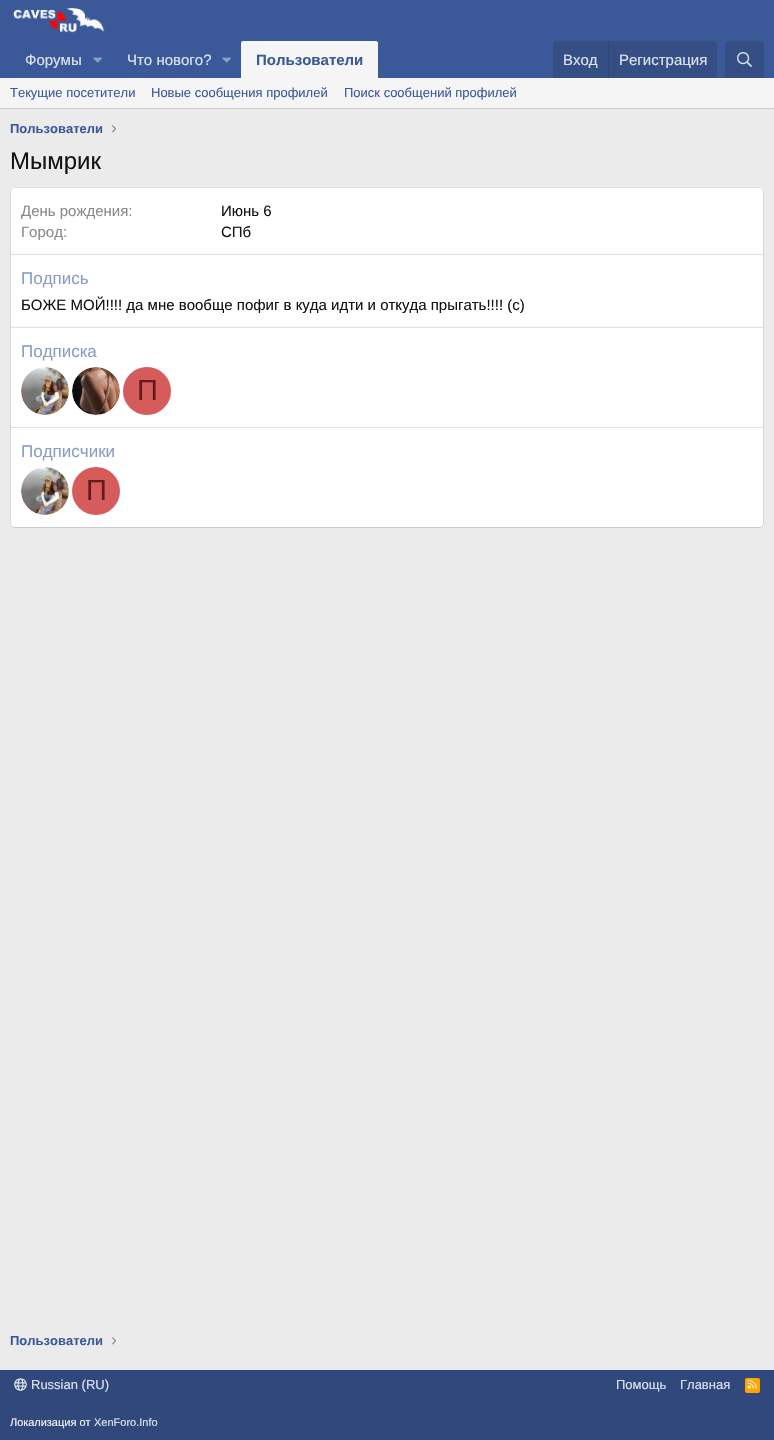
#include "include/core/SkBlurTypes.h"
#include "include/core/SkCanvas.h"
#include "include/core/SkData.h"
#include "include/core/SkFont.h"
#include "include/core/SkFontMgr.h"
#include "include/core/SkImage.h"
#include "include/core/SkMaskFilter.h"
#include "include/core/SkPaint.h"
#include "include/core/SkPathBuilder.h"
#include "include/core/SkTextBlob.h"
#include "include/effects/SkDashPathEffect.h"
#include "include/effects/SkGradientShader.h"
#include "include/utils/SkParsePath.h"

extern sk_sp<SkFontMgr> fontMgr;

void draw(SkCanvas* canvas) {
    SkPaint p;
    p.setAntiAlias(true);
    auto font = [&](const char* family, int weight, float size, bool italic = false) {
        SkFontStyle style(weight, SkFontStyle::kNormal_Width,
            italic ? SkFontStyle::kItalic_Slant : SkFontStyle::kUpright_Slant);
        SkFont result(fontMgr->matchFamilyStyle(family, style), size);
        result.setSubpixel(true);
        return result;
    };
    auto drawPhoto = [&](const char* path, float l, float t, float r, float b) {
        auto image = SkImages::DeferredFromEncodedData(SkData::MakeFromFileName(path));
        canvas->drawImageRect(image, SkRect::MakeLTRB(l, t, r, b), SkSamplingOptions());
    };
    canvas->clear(0xFFEBEBEB);
    p.setColor(0xFF3B5998);
    canvas->drawRect(SkRect::MakeLTRB(0, 0, 774, 78), p);
    drawPhoto("media/1.png", 13, 8, 105, 33);
    auto font1 = font("Liberation Sans", 400, 15);
    p.setColor(0xFFDFE3EE);
    canvas->drawString("Форумы", 25, 65, font1, p);
    drawPhoto("media/2.png", 93, 57, 102, 63);
    canvas->drawString("Что нового?", 127, 65, font1, p);
    drawPhoto("media/2.png", 222, 57, 231, 63);
    p.setColor(0xFFF5F5F5);
    canvas->drawPath(SkPathBuilder().moveTo(243, 41).lineTo(376, 41).cubicTo(377, 41, 378, 42, 378, 43).lineTo(378, 78).lineTo(241, 78).lineTo(241, 43).cubicTo(241, 42, 242, 41, 243, 41).close().detach(), p);
    auto font2 = font("Liberation Sans", 700, 15);
    p.setColor(0xFF3B5998);
    canvas->drawString("Пользователи", 256, 65, font2, p);
    p.setColor(0xFF354F84);
    canvas->drawPath(SkPathBuilder().moveTo(557, 41).lineTo(713, 41).cubicTo(715, 41, 717, 43, 717, 45).lineTo(717, 78).lineTo(553, 78).lineTo(553, 45).cubicTo(553, 43, 555, 41, 557, 41).close().detach(), p);
    p.setColor(0xFFDFE3EE);
    canvas->drawString("Вход", 563, 65, font1, p);
    p.setColor(0xFF304673);
    canvas->drawRect(SkRect::MakeLTRB(608, 41, 609, 78), p);
    p.setColor(0xFFDFE3EE);
    canvas->drawString("Регистрация", 619, 65, font1, p);
    p.setColor(0xFF354F84);
    canvas->drawPath(SkPathBuilder().moveTo(729, 41).lineTo(760, 41).cubicTo(762, 41, 764, 43, 764, 45).lineTo(764, 78).lineTo(725, 78).lineTo(725, 45).cubicTo(725, 43, 727, 41, 729, 41).close().detach(), p);
    drawPhoto("media/3.png", 737, 52, 752, 67);
    p.setColor(0xFFF5F5F5);
    canvas->drawRect(SkRect::MakeLTRB(0, 78, 774, 108), p);
    p.setColor(0xFFCCCCCC);
    canvas->drawRect(SkRect::MakeLTRB(0, 108, 774, 109), p);
    auto font3 = font("Liberation Sans", 400, 13);
    p.setColor(0xFF3B5998);
    {
        const struct { const char* s; float x, y; } items[] = {
            {"Текущие посетители", 10, 97},
            {"Новые сообщения профилей", 151, 97},
            {"Поиск сообщений профилей", 344, 97},
        };
        for (auto [s, x, y] : items) {
            canvas->drawString(s, x, y, font3, p);
        }
    }
    auto font4 = font("Liberation Sans", 700, 13);
    canvas->drawString("Пользователи", 10, 133, font4, p);
    drawPhoto("media/4.png", 112, 125, 116, 133);
    auto font5 = font("Liberation Sans", 400, 24);
    p.setColor(0xFF141414);
    canvas->drawString("Мымрик", 10, 169, font5, p);
    p.setColor(0xFFFFFFFF);
    canvas->drawRoundRect(SkRect::MakeLTRB(10, 187, 764, 528), 4, 4, p);
    p.setStyle(SkPaint::kStroke_Style);
    p.setStrokeWidth(1);
    p.setColor(0xFFE0E0E0);
    canvas->drawPath(SkPathBuilder().moveTo(11.5f, 188.5f).lineTo(14, 187.5f).lineTo(760, 187.5f).lineTo(762.5f, 188.5f).detach(), p);
    p.setColor(0xFFD6D6D6);
    canvas->drawPath(SkPathBuilder().moveTo(762.5f, 188.5f).lineTo(763.5f, 191).lineTo(763.5f, 524).lineTo(762.5f, 526.5f).detach(), p);
    p.setColor(0xFFCCCCCC);
    canvas->drawPath(SkPathBuilder().moveTo(762.5f, 526.5f).lineTo(760, 527.5f).lineTo(14, 527.5f).lineTo(11.5f, 526.5f).detach(), p);
    p.setColor(0xFFD6D6D6);
    canvas->drawPath(SkPathBuilder().moveTo(11.5f, 526.5f).lineTo(10.5f, 524).lineTo(10.5f, 191).lineTo(11.5f, 188.5f).detach(), p);
    p.setStyle(SkPaint::kFill_Style);
    p.setColor(0xFF8A8A8A);
    canvas->drawString("День рождения:", 21, 216, font1, p);
    p.setColor(0xFF141414);
    canvas->drawString("Июнь 6", 221, 216, font1, p);
    p.setColor(0xFF8A8A8A);
    canvas->drawString("Город:", 21, 237, font1, p);
    p.setColor(0xFF141414);
    canvas->drawString("СПб", 221, 237, font1, p);
    p.setColor(0xFFE0E0E0);
    canvas->drawRect(SkRect::MakeLTRB(11, 254, 763, 255), p);
    auto font6 = font("Liberation Sans", 400, 17);
    p.setColor(0xFF8B9DC3);
    canvas->drawString("Подпись", 21, 284, font6, p);
    p.setColor(0xFF141414);
    canvas->drawString("БОЖЕ МОЙ!!!! да мне вообще пофиг в куда идти и откуда прыгать!!!! (с)", 21, 310, font1, p);
    p.setColor(0xFFE0E0E0);
    canvas->drawRect(SkRect::MakeLTRB(11, 327, 763, 328), p);
    p.setColor(0xFF8B9DC3);
    canvas->drawString("Подписка", 21, 357, font6, p);
    drawPhoto("media/5.png", 21, 367, 69, 415);
    drawPhoto("media/6.png", 72, 367, 120, 415);
    p.setColor(0xFFD65C5C);
    canvas->drawCircle(147, 391, 24, p);
    auto font7 = font("Liberation Sans", 400, 29);
    p.setColor(0xFF661A1A);
    canvas->drawString("П", 137, 400, font7, p);
    p.setColor(0xFFE0E0E0);
    canvas->drawRect(SkRect::MakeLTRB(11, 427, 763, 428), p);
    p.setColor(0xFF8B9DC3);
    canvas->drawString("Подписчики", 21, 457, font6, p);
    drawPhoto("media/7.png", 21, 467, 69, 515);
    p.setColor(0xFFD65C5C);
    canvas->drawCircle(96, 491, 24, p);
    p.setColor(0xFF661A1A);
    canvas->drawString("П", 86, 500, font7, p);
    p.setColor(0xFF3B5998);
    canvas->drawString("Пользователи", 10, 1345, font4, p);
    drawPhoto("media/4.png", 112, 1337, 116, 1345);
    p.setColor(0xFF30487B);
    canvas->drawRect(SkRect::MakeLTRB(0, 1370, 774, 1440), p);
    drawPhoto("media/8.png", 14, 1378, 27, 1391);
    p.setColor(0xFFDFE3EE);
    {
        const struct { const char* s; float x, y; } items[] = {
            {"Russian (RU)", 31, 1389},
            {"Помощь", 616, 1389},
            {"Главная", 680, 1389},
        };
        for (auto [s, x, y] : items) {
            canvas->drawString(s, x, y, font3, p);
        }
    }
    p.setColor(0xFFFFA500);
    canvas->drawRoundRect(SkRect::MakeLTRB(745, 1378, 760, 1393), 2, 2, p);
    drawPhoto("media/9.png", 747, 1379, 757, 1389);
    auto font8 = font("Liberation Sans", 400, 11);
    p.setColor(0xFFF7F7F7);
    canvas->drawString("Локализация от", 10, 1426, font8, p);
    p.setColor(0xFFDFE3EE);
    canvas->drawString("XenForo.Info", 94, 1426, font8, p);
}
